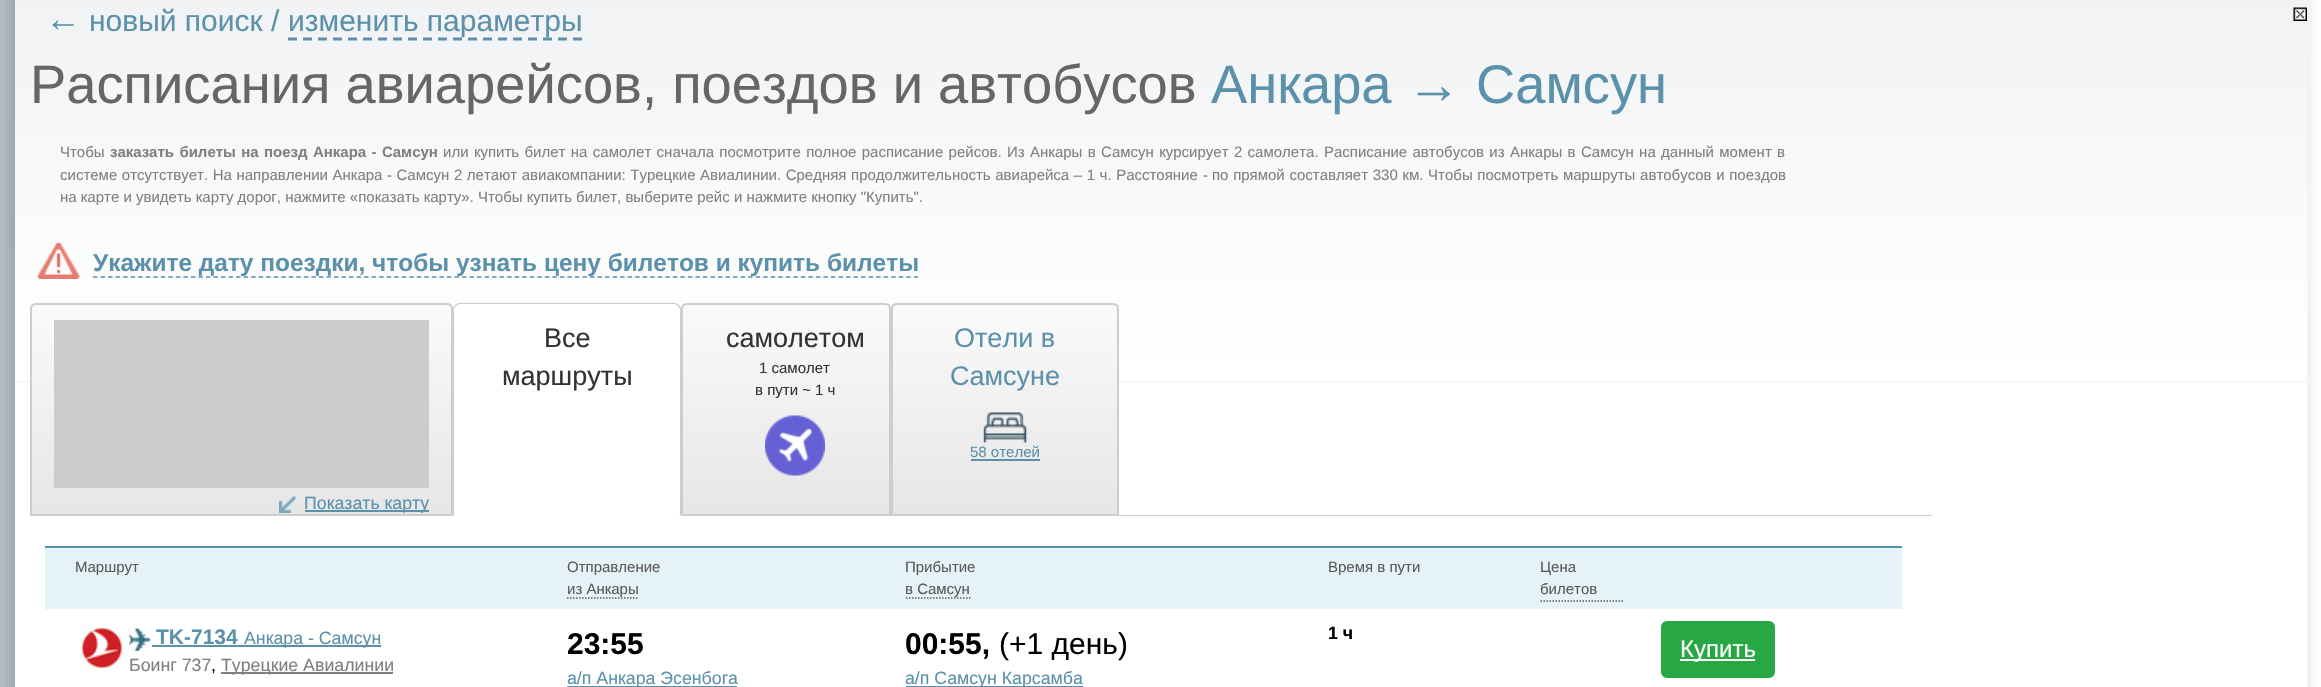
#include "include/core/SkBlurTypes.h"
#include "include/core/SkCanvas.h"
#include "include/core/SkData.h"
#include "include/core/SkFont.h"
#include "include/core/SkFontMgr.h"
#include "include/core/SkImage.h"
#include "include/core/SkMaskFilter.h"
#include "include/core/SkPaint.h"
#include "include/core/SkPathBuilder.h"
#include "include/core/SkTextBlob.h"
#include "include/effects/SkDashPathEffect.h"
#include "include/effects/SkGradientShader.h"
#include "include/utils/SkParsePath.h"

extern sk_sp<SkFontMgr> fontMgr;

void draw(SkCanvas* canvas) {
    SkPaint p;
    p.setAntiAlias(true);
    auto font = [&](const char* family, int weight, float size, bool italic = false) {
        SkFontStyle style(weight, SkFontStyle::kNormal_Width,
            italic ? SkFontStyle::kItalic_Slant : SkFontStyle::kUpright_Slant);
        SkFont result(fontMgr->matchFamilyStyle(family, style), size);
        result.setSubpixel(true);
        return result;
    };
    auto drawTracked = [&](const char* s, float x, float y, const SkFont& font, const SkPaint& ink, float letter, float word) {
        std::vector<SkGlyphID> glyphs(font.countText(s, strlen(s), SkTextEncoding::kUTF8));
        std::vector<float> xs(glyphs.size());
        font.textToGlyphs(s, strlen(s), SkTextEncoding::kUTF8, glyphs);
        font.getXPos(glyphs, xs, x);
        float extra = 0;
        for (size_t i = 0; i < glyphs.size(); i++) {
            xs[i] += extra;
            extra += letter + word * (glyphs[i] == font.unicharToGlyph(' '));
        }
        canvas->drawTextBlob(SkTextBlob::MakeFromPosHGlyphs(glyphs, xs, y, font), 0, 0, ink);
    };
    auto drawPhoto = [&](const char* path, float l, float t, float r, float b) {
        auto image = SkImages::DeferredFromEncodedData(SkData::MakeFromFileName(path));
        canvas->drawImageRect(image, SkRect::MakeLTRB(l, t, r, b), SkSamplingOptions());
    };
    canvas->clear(0xFFB1BAC1);
    drawPhoto("media/1.png", 5, 0, 15, 687);
    drawPhoto("media/2.png", 2307, 0, 2321, 687);
    p.setColor(0xFFFFFFFF);
    canvas->drawRect(SkRect::MakeLTRB(15, 382, 2307, 687), p);
    drawPhoto("media/3.png", 15, 0, 2307, 383);
    auto font1 = font("Liberation Sans", 400, 36);
    p.setColor(0xFF5C91AB);
    canvas->drawString("←", 45, 31, font1, p);
    auto font2 = font("Liberation Sans", 400, 30);
    canvas->drawString("новый поиск /", 89, 31, font2, p);
    p.setStyle(SkPaint::kStroke_Style);
    p.setStrokeWidth(3);
    p.setPathEffect(SkDashPathEffect::Make({{9, 6}}, 0));
    canvas->drawPath(SkPathBuilder().moveTo(288, 39).lineTo(582, 39).detach(), p);
    p.setPathEffect(nullptr);
    p.setStyle(SkPaint::kFill_Style);
    canvas->drawString("изменить параметры", 288, 31, font2, p);
    auto font3 = font("Liberation Sans", 400, 54.3f);
    p.setColor(0xFF666666);
    canvas->drawString("Расписания авиарейсов, поездов и автобусов", 30, 103, font3, p);
    p.setColor(0xFF5C91AB);
    canvas->drawString("Анкара → Самсун", 1211, 103, font3, p);
    auto font4 = font("Liberation Sans", 400, 15);
    p.setColor(0xFF808080);
    canvas->drawString("Чтобы", 60, 157, font4, p);
    auto font5 = font("Liberation Sans", 700, 15);
    drawTracked("заказать билеты на поезд Анкара - Самсун", 110, 157, font5, p, 0, 1.2f);
    drawTracked("или купить билет на самолет сначала посмотрите полное расписание рейсов. Из Анкары в Самсун курсирует 2 самолета. Расписание автобусов из Анкары в Самсун на данный момент в", 443, 157, font4, p, 0, 1.2f);
    drawTracked("системе отсутствует. На направлении Анкара - Самсун 2 летают авиакомпании: Турецкие Авиалинии. Средняя продолжительность авиарейса – 1 ч. Расстояние", 60, 180, font4, p, 0, 0.4f);
    canvas->drawString("-", 1203, 180, font4, p);
    drawTracked("по прямой составляет 330 км. Чтобы посмотреть маршруты автобусов и поездов", 1212, 180, font4, p, 0, 0.5f);
    canvas->drawString("на карте и увидеть карту дорог, нажмите «показать карту». Чтобы купить билет, выберите рейс и нажмите кнопку \"Купить\".", 60, 202, font4, p);
    drawPhoto("media/4.png", 37, 243, 80, 279);
    p.setStyle(SkPaint::kStroke_Style);
    p.setStrokeWidth(1.5f);
    p.setColor(0xFF5C91AB);
    p.setPathEffect(SkDashPathEffect::Make({{4.5f, 3.03f}}, 0));
    canvas->drawPath(SkPathBuilder().moveTo(93, 277).lineTo(918, 277).detach(), p);
    p.setPathEffect(nullptr);
    auto font6 = font("Liberation Sans", 700, 24.45f);
    p.setStyle(SkPaint::kFill_Style);
    canvas->drawString("Укажите дату поездки, чтобы узнать цену билетов и купить билеты", 93, 271, font6, p);
    p.setColor(0xFFCCCCCC);
    canvas->drawRect(SkRect::MakeLTRB(1119, 515, 1932, 516), p);
    p.setColor(0xFFFFFFFF);
    canvas->drawPath(SkPathBuilder().moveTo(459, 303).lineTo(675, 303).cubicTo(678.5f, 303, 681, 305.5f, 681, 309).lineTo(681, 516).lineTo(453, 516).lineTo(453, 309).cubicTo(453, 305.5f, 455.5f, 303, 459, 303).close().detach(), p);
    p.setColor(0xFFCCCCCC);
    canvas->drawPath(SkPathBuilder().moveTo(459, 303).cubicTo(458, 303, 456, 304, 455, 305).lineTo(456, 306).lineTo(459, 304).lineTo(675, 304).lineTo(678, 306).lineTo(679, 305).cubicTo(678, 304, 676, 303, 675, 303).close().detach(), p);
    canvas->drawPath(SkPathBuilder().moveTo(681, 516).lineTo(681, 308).lineTo(679, 305).lineTo(678, 306).lineTo(680, 309).lineTo(680, 514).lineTo(679, 514).close().detach(), p);
    canvas->drawPath(SkPathBuilder().moveTo(453, 516).lineTo(455, 514).lineTo(454, 514).lineTo(454, 309).lineTo(456, 306).lineTo(455, 305).cubicTo(454, 306, 453, 308, 453, 309).close().detach(), p);
    auto font7 = font("Liberation Sans", 400, 27);
    p.setColor(0xFF333333);
    canvas->drawString("Все", 544, 347, font7, p);
    canvas->drawString("маршруты", 502, 385, font7, p);
    canvas->save();
    canvas->clipPath(SkPathBuilder().moveTo(687, 303).lineTo(885, 303).cubicTo(888.5f, 303, 891, 305.5f, 891, 309).lineTo(891, 516).lineTo(681, 516).lineTo(681, 309).cubicTo(681, 305.5f, 683.5f, 303, 687, 303).close().detach(), true);
    {
        const SkColor colors[] = {0xFFFAFAFA, 0xFFE6E6E6};
        const float stops[] = {0, 1};
        const SkPoint ends[] = {{786, 305}, {786, 515}};
        p.setShader(SkGradientShader::MakeLinear(ends, colors, stops, 2, SkTileMode::kClamp));
        p.setAlpha(255);
    }
    canvas->drawRect(SkRect::MakeLTRB(681, 305, 891, 514), p);
    canvas->restore();
    p.setStyle(SkPaint::kStroke_Style);
    p.setStrokeWidth(2);
    p.setShader(nullptr);
    p.setColor(0xFFCDCDCD);
    canvas->drawPath(SkPathBuilder().moveTo(687, 304).lineTo(885, 304).cubicTo(888, 304, 890, 306, 890, 309).lineTo(890, 515).lineTo(682, 515).lineTo(682, 309).cubicTo(682, 306, 684, 304, 687, 304).close().detach(), p);
    p.setStyle(SkPaint::kFill_Style);
    p.setColor(0xFF333333);
    canvas->drawString("самолетом", 726, 347, font7, p);
    canvas->drawString("1 самолет", 759, 373, font4, p);
    canvas->drawString("в пути ~ 1 ч", 755, 395, font4, p);
    drawPhoto("media/5.png", 765, 415, 825, 476);
    canvas->save();
    canvas->clipPath(SkPathBuilder().moveTo(897, 303).lineTo(1113, 303).cubicTo(1116.5f, 303, 1119, 305.5f, 1119, 309).lineTo(1119, 516).lineTo(891, 516).lineTo(891, 309).cubicTo(891, 305.5f, 893.5f, 303, 897, 303).close().detach(), true);
    {
        const SkColor colors[] = {0xFFFAFAFA, 0xFFE6E6E6};
        const float stops[] = {0, 1};
        const SkPoint ends[] = {{1005, 305}, {1005, 515}};
        p.setShader(SkGradientShader::MakeLinear(ends, colors, stops, 2, SkTileMode::kClamp));
        p.setAlpha(255);
    }
    canvas->drawRect(SkRect::MakeLTRB(891, 305, 1119, 514), p);
    canvas->restore();
    p.setStyle(SkPaint::kStroke_Style);
    p.setShader(nullptr);
    p.setColor(0xFFCDCDCD);
    canvas->drawPath(SkPathBuilder().moveTo(897, 304).lineTo(1113, 304).cubicTo(1116, 304, 1118, 306, 1118, 309).lineTo(1118, 515).lineTo(892, 515).lineTo(892, 309).cubicTo(892, 306, 894, 304, 897, 304).close().detach(), p);
    p.setStyle(SkPaint::kFill_Style);
    p.setColor(0xFF5C91AB);
    canvas->drawString("Отели в", 954, 347, font7, p);
    canvas->drawString("Самсуне", 950, 385, font7, p);
    drawPhoto("media/6.png", 982, 412, 1028, 443);
    canvas->drawString("58 отелей", 970, 457, font4, p);
    canvas->drawRect(SkRect::MakeLTRB(971, 459, 1040, 461), p);
    canvas->save();
    canvas->clipPath(SkPathBuilder().moveTo(36, 303).lineTo(447, 303).cubicTo(450.5f, 303, 453, 305.5f, 453, 309).lineTo(453, 516).lineTo(30, 516).lineTo(30, 309).cubicTo(30, 305.5f, 32.5f, 303, 36, 303).close().detach(), true);
    {
        const SkColor colors[] = {0xFFFAFAFA, 0xFFE6E6E6};
        const float stops[] = {0, 1};
        const SkPoint ends[] = {{242, 305}, {242, 515}};
        p.setShader(SkGradientShader::MakeLinear(ends, colors, stops, 2, SkTileMode::kClamp));
        p.setAlpha(255);
    }
    canvas->drawRect(SkRect::MakeLTRB(30, 305, 453, 514), p);
    canvas->restore();
    p.setStyle(SkPaint::kStroke_Style);
    p.setShader(nullptr);
    p.setColor(0xFFCDCDCD);
    canvas->drawPath(SkPathBuilder().moveTo(36, 304).lineTo(447, 304).cubicTo(450, 304, 452, 306, 452, 309).lineTo(452, 515).lineTo(31, 515).lineTo(31, 309).cubicTo(31, 306, 33, 304, 36, 304).close().detach(), p);
    p.setStyle(SkPaint::kFill_Style);
    p.setColor(0xFFCCCCCC);
    canvas->drawRect(SkRect::MakeLTRB(54, 320, 429, 488), p);
    drawPhoto("media/7.png", 279, 496, 296, 513);
    p.setColor(0xFF5C91AB);
    canvas->drawRect(SkRect::MakeLTRB(305, 510, 429, 512), p);
    auto font8 = font("Liberation Sans", 400, 17.75f);
    canvas->drawString("Показать карту", 304, 509, font8, p);
    canvas->drawRect(SkRect::MakeLTRB(45, 546, 1902, 548), p);
    p.setColor(0xFFE5F2F7);
    canvas->drawRect(SkRect::MakeLTRB(45, 548, 1902, 609), p);
    p.setColor(0xFF5A5A5A);
    canvas->drawString("Маршрут", 75, 572, font4, p);
    canvas->drawString("Отправление", 567, 572, font4, p);
    p.setStyle(SkPaint::kStroke_Style);
    p.setStrokeWidth(1.5f);
    p.setPathEffect(SkDashPathEffect::Make({{1.5f, 1.5f}}, 0));
    canvas->drawPath(SkPathBuilder().moveTo(567, 598).lineTo(639, 598).detach(), p);
    p.setPathEffect(nullptr);
    p.setStyle(SkPaint::kFill_Style);
    canvas->drawString("из Анкары", 567, 594, font4, p);
    canvas->drawString("Прибытие", 905, 572, font4, p);
    p.setStyle(SkPaint::kStroke_Style);
    p.setPathEffect(SkDashPathEffect::Make({{1.5f, 1.5f}}, 0));
    canvas->drawPath(SkPathBuilder().moveTo(906, 598).lineTo(970.5f, 598).detach(), p);
    p.setPathEffect(nullptr);
    p.setStyle(SkPaint::kFill_Style);
    canvas->drawString("в Самсун", 905, 594, font4, p);
    canvas->drawString("Время в пути", 1328, 572, font4, p);
    p.setStyle(SkPaint::kStroke_Style);
    p.setPathEffect(SkDashPathEffect::Make({{1.5f, 1.5f}}, 0));
    canvas->drawPath(SkPathBuilder().moveTo(1540.5f, 601).lineTo(1623, 601).detach(), p);
    p.setPathEffect(nullptr);
    p.setStyle(SkPaint::kFill_Style);
    canvas->drawString("Цена", 1540, 572, font4, p);
    canvas->drawString("билетов", 1540, 594, font4, p);
    drawPhoto("media/8.png", 81, 627, 123, 669);
    drawPhoto("media/9.png", 129, 628, 151, 651);
    auto font9 = font("Liberation Sans", 700, 21);
    p.setColor(0xFF5C91AB);
    canvas->drawString("TK-7134", 156, 644, font9, p);
    canvas->drawRect(SkRect::MakeLTRB(152, 645, 381, 647), p);
    canvas->drawString("Анкара - Самсун", 244, 644, font8, p);
    p.setColor(0xFF808080);
    canvas->drawString("Боинг 737", 129, 671, font8, p);
    p.setColor(0xFF000000);
    canvas->drawString(",", 211, 671, font8, p);
    p.setColor(0xFF808080);
    canvas->drawRect(SkRect::MakeLTRB(221, 672, 393, 674), p);
    canvas->drawString("Турецкие Авиалинии", 221, 671, font8, p);
    auto font10 = font("Liberation Sans", 700, 30);
    p.setColor(0xFF000000);
    canvas->drawString("23:55", 567, 654, font10, p);
    p.setColor(0xFF5C91AB);
    canvas->drawRect(SkRect::MakeLTRB(567, 686, 737, 687), p);
    canvas->drawString("а/п Анкара Эсенбога", 567, 684, font8, p);
    p.setColor(0xFF000000);
    canvas->drawString("00:55,", 905, 654, font10, p);
    canvas->drawString("(+1 день)", 999, 654, font2, p);
    p.setColor(0xFF5C91AB);
    canvas->drawRect(SkRect::MakeLTRB(906, 686, 1083, 687), p);
    canvas->drawString("а/п Самсун Карсамба", 905, 684, font8, p);
    auto font11 = font("Liberation Sans", 700, 17.75f);
    p.setColor(0xFF000000);
    canvas->drawString("1 ч", 1328, 639, font11, p);
    p.setColor(0xFF28A745);
    canvas->drawRoundRect(SkRect::MakeLTRB(1662, 622, 1774, 677), 5, 5, p);
    p.setStyle(SkPaint::kStroke_Style);
    p.setStrokeWidth(2);
    canvas->drawRoundRect(SkRect::MakeLTRB(1662, 622, 1774, 677), 5, 5, p);
    p.setStyle(SkPaint::kFill_Style);
    p.setColor(0xFFFFFFFF);
    canvas->drawRect(SkRect::MakeLTRB(1680, 659, 1755, 661), p);
    auto font12 = font("Liberation Sans", 400, 24);
    canvas->drawString("Купить", 1680, 657, font12, p);
    drawPhoto("media/10.png", 2293, 7, 2307, 21);
}
